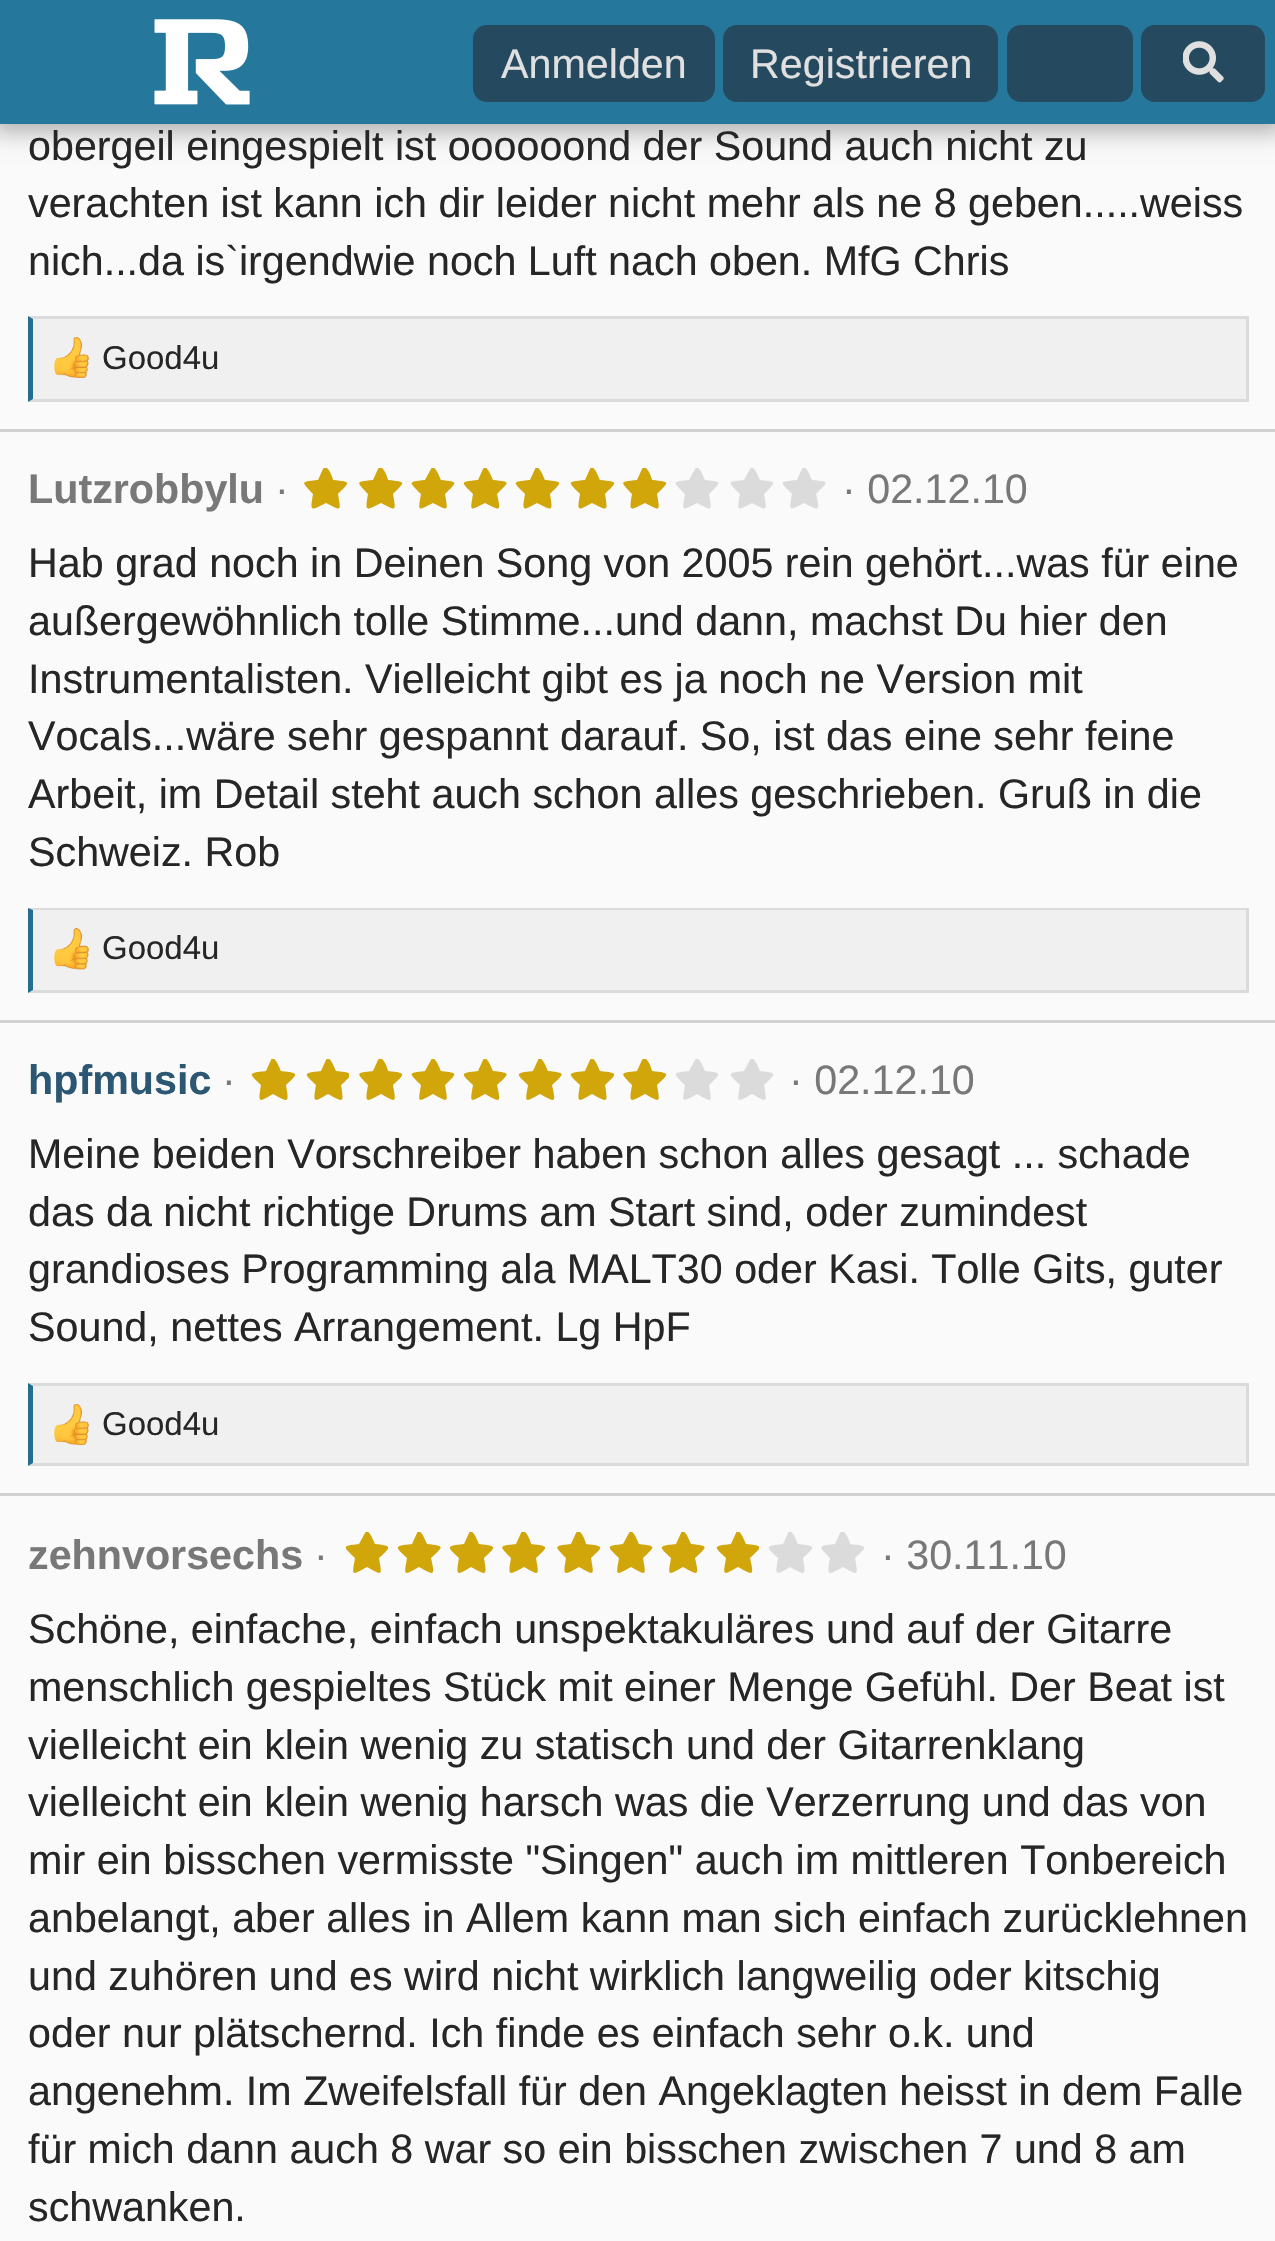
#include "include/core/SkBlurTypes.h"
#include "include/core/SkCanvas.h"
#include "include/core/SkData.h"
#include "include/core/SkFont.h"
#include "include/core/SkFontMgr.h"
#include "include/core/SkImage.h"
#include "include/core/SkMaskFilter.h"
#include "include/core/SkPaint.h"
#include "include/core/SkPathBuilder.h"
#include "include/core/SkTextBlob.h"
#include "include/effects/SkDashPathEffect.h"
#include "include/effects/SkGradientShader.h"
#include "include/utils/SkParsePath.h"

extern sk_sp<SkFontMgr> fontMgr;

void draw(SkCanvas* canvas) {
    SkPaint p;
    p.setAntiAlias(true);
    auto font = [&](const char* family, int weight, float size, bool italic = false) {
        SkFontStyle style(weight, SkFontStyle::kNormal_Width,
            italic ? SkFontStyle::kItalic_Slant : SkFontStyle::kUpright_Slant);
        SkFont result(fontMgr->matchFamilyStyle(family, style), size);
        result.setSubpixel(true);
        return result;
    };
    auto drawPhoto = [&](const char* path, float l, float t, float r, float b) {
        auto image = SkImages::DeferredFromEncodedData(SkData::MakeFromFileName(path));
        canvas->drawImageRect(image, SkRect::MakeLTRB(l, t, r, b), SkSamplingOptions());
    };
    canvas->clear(0xFFFAFAFA);
    p.setColor(0x4D000000);
    p.setMaskFilter(SkMaskFilter::MakeBlur(kNormal_SkBlurStyle, 11));
    canvas->drawRect(SkRect::MakeLTRB(-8, -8, 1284, 132), p);
    p.setMaskFilter(nullptr);
    p.setColor(0xFF26779C);
    canvas->drawRect(SkRect::MakeLTRB(0, 0, 1275, 124), p);
    drawPhoto("media/1.png", 154, 19, 250, 105);
    p.setColor(0xFF25495F);
    canvas->drawRoundRect(SkRect::MakeLTRB(473, 25, 715, 102), 14, 14, p);
    auto font1 = font("Liberation Sans", 400, 41.25f);
    p.setColor(0xFFE0E0E0);
    canvas->drawString("Anmelden", 501, 78, font1, p);
    p.setColor(0xFF25495F);
    canvas->drawRoundRect(SkRect::MakeLTRB(723, 25, 998, 102), 14, 14, p);
    p.setColor(0xFFE0E0E0);
    canvas->drawString("Registrieren", 750, 78, font1, p);
    p.setColor(0xFF25495F);
    canvas->drawRoundRect(SkRect::MakeLTRB(1007, 25, 1133, 102), 14, 14, p);
    canvas->drawRoundRect(SkRect::MakeLTRB(1141, 25, 1265, 102), 14, 14, p);
    drawPhoto("media/2.png", 1183, 41, 1224, 83);
    p.setColor(0xFF262626);
    {
        const struct { const char* s; float x, y; } items[] = {
            {"obergeil eingespielt ist oooooond der Sound auch nicht zu", 28, 160},
            {"verachten ist kann ich dir leider nicht mehr als ne 8 geben.....weiss", 28, 217},
            {"nich...da is`irgendwie noch Luft nach oben. MfG Chris", 28, 275},
        };
        for (auto [s, x, y] : items) {
            canvas->drawString(s, x, y, font1, p);
        }
    }
    p.setColor(0xFFF0F0F0);
    canvas->drawRect(SkRect::MakeLTRB(33, 319, 1246, 399), p);
    p.setColor(0xFFDBDBDB);
    canvas->drawPath(SkPathBuilder().moveTo(28, 316).lineTo(1248, 316).lineTo(1246, 319).lineTo(33, 319).close().detach(), p);
    canvas->drawRect(SkRect::MakeLTRB(1246, 316, 1249, 402), p);
    canvas->drawPath(SkPathBuilder().moveTo(1248, 402).lineTo(28, 402).lineTo(33, 399).lineTo(1246, 399).close().detach(), p);
    p.setColor(0xFF236D90);
    canvas->drawPath(SkPathBuilder().moveTo(28, 402).lineTo(28, 316).lineTo(33, 319).lineTo(33, 399).close().detach(), p);
    drawPhoto("media/3.png", 54, 337, 89, 378);
    auto font2 = font("Liberation Sans", 400, 33);
    p.setColor(0xFF262626);
    canvas->drawString("Good4u", 102, 369, font2, p);
    p.setColor(0xFFD1D1D1);
    canvas->drawRect(SkRect::MakeLTRB(0, 429, 1275, 432), p);
    auto font3 = font("Liberation Sans", 700, 41.25f);
    p.setColor(0xFF787878);
    canvas->drawString("Lutzrobbylu", 28, 503, font3, p);
    canvas->drawString("·", 275, 503, font1, p);
    canvas->save();
    canvas->clipRect(SkRect::MakeLTRB(303, 468, 349, 509));
    p.setColor(0xFFD0A60B);
    canvas->drawPath(SkPathBuilder().moveTo(323, 469).lineTo(318, 480).cubicTo(300, 482, 301, 481, 313, 494).cubicTo(310, 512, 310, 511, 326, 503).cubicTo(342, 511, 341, 512, 338, 494).cubicTo(351, 481, 351, 482, 333, 480).cubicTo(333, 478, 327, 462, 323, 469).close().detach(), p);
    canvas->restore();
    canvas->save();
    canvas->clipRect(SkRect::MakeLTRB(358, 468, 404, 509));
    canvas->drawPath(SkPathBuilder().moveTo(378, 469).lineTo(373, 480).cubicTo(355, 482, 356, 481, 368, 494).cubicTo(365, 512, 365, 511, 381, 503).cubicTo(397, 511, 396, 512, 393, 494).cubicTo(406, 481, 406, 482, 388, 480).cubicTo(388, 478, 382, 462, 378, 469).close().detach(), p);
    canvas->restore();
    canvas->save();
    canvas->clipRect(SkRect::MakeLTRB(410, 468, 457, 509));
    canvas->drawPath(SkPathBuilder().moveTo(431, 469).lineTo(425, 480).cubicTo(408, 482, 408, 481, 421, 494).cubicTo(418, 512, 417, 511, 433, 503).cubicTo(449, 511, 448, 512, 445, 494).cubicTo(458, 481, 458, 482, 441, 480).cubicTo(440, 478, 434, 462, 431, 469).close().detach(), p);
    canvas->restore();
    canvas->save();
    canvas->clipRect(SkRect::MakeLTRB(462, 468, 509, 509));
    canvas->drawPath(SkPathBuilder().moveTo(483, 469).lineTo(478, 480).cubicTo(460, 482, 460, 481, 473, 494).cubicTo(470, 512, 469, 511, 485, 503).cubicTo(501, 511, 501, 512, 497, 494).cubicTo(510, 481, 511, 482, 493, 480).cubicTo(492, 478, 486, 462, 483, 469).close().detach(), p);
    canvas->restore();
    canvas->save();
    canvas->clipRect(SkRect::MakeLTRB(514, 468, 561, 509));
    canvas->drawPath(SkPathBuilder().moveTo(535, 469).lineTo(530, 480).cubicTo(512, 482, 512, 481, 525, 494).cubicTo(522, 512, 522, 511, 537, 503).cubicTo(553, 511, 553, 512, 550, 494).cubicTo(563, 481, 563, 482, 545, 480).cubicTo(544, 478, 538, 462, 535, 469).close().detach(), p);
    canvas->restore();
    canvas->save();
    canvas->clipRect(SkRect::MakeLTRB(569, 468, 616, 509));
    canvas->drawPath(SkPathBuilder().moveTo(590, 469).lineTo(585, 480).cubicTo(567, 482, 567, 481, 580, 494).cubicTo(577, 512, 577, 511, 592, 503).cubicTo(608, 511, 608, 512, 605, 494).cubicTo(618, 481, 618, 482, 600, 480).cubicTo(599, 478, 593, 462, 590, 469).close().detach(), p);
    canvas->restore();
    canvas->save();
    canvas->clipRect(SkRect::MakeLTRB(622, 468, 668, 509));
    canvas->drawPath(SkPathBuilder().moveTo(642, 469).lineTo(637, 480).cubicTo(619, 482, 620, 481, 632, 494).cubicTo(629, 512, 629, 511, 645, 503).cubicTo(661, 511, 660, 512, 657, 494).cubicTo(670, 481, 670, 482, 652, 480).cubicTo(652, 478, 646, 462, 642, 469).close().detach(), p);
    canvas->restore();
    canvas->save();
    canvas->clipRect(SkRect::MakeLTRB(674, 468, 721, 509));
    p.setColor(0xFFDBDBDB);
    canvas->drawPath(SkPathBuilder().moveTo(695, 469).lineTo(689, 480).cubicTo(672, 482, 672, 481, 685, 494).cubicTo(682, 512, 681, 511, 697, 503).cubicTo(713, 511, 712, 512, 709, 494).cubicTo(722, 481, 722, 482, 705, 480).cubicTo(704, 478, 698, 462, 695, 469).close().detach(), p);
    canvas->restore();
    canvas->save();
    canvas->clipRect(SkRect::MakeLTRB(729, 468, 776, 509));
    canvas->drawPath(SkPathBuilder().moveTo(750, 469).lineTo(744, 480).cubicTo(727, 482, 727, 481, 740, 494).cubicTo(737, 512, 736, 511, 752, 503).cubicTo(768, 511, 767, 512, 764, 494).cubicTo(777, 481, 777, 482, 760, 480).cubicTo(759, 478, 753, 462, 750, 469).close().detach(), p);
    canvas->restore();
    canvas->save();
    canvas->clipRect(SkRect::MakeLTRB(781, 468, 828, 509));
    canvas->drawPath(SkPathBuilder().moveTo(802, 469).lineTo(797, 480).cubicTo(779, 482, 779, 481, 792, 494).cubicTo(789, 512, 788, 511, 804, 503).cubicTo(820, 511, 820, 512, 816, 494).cubicTo(829, 481, 830, 482, 812, 480).cubicTo(811, 478, 805, 462, 802, 469).close().detach(), p);
    canvas->restore();
    p.setColor(0xFF787878);
    canvas->drawString("· 02.12.10", 842, 503, font1, p);
    p.setColor(0xFF262626);
    {
        const struct { const char* s; float x, y; } items[] = {
            {"Hab grad noch in Deinen Song von 2005 rein gehört...was für eine", 28, 577},
            {"außergewöhnlich tolle Stimme...und dann, machst Du hier den", 28, 635},
            {"Instrumentalisten. Vielleicht gibt es ja noch ne Version mit", 28, 693},
            {"Vocals...wäre sehr gespannt darauf. So, ist das eine sehr feine", 28, 750},
            {"Arbeit, im Detail steht auch schon alles geschrieben. Gruß in die", 28, 808},
            {"Schweiz. Rob", 28, 866},
        };
        for (auto [s, x, y] : items) {
            canvas->drawString(s, x, y, font1, p);
        }
    }
    p.setColor(0xFFF0F0F0);
    canvas->drawRect(SkRect::MakeLTRB(33, 910, 1246, 990), p);
    p.setColor(0xFFDBDBDB);
    canvas->drawPath(SkPathBuilder().moveTo(28, 908).lineTo(1248, 908).lineTo(1246, 910).lineTo(33, 910).close().detach(), p);
    canvas->drawRect(SkRect::MakeLTRB(1246, 908, 1249, 993), p);
    canvas->drawPath(SkPathBuilder().moveTo(1248, 993).lineTo(28, 993).lineTo(33, 990).lineTo(1246, 990).close().detach(), p);
    p.setColor(0xFF236D90);
    canvas->drawPath(SkPathBuilder().moveTo(28, 993).lineTo(28, 908).lineTo(33, 910).lineTo(33, 990).close().detach(), p);
    drawPhoto("media/4.png", 54, 928, 89, 970);
    p.setColor(0xFF262626);
    canvas->drawString("Good4u", 102, 959, font2, p);
    p.setColor(0xFFD1D1D1);
    canvas->drawRect(SkRect::MakeLTRB(0, 1020, 1275, 1023), p);
    p.setColor(0xFF2C5772);
    canvas->drawString("hpfmusic", 28, 1094, font3, p);
    p.setColor(0xFF787878);
    canvas->drawString("·", 222, 1094, font1, p);
    canvas->save();
    canvas->clipRect(SkRect::MakeLTRB(250, 1059, 297, 1100));
    p.setColor(0xFFD0A60B);
    canvas->drawPath(SkPathBuilder().moveTo(271, 1060).lineTo(266, 1071).cubicTo(248, 1073, 248, 1073, 261, 1085).cubicTo(258, 1103, 258, 1103, 273, 1094).cubicTo(289, 1103, 289, 1103, 286, 1085).cubicTo(299, 1073, 299, 1073, 281, 1071).cubicTo(280, 1069, 274, 1053, 271, 1060).close().detach(), p);
    canvas->restore();
    canvas->save();
    canvas->clipRect(SkRect::MakeLTRB(305, 1059, 349, 1100));
    canvas->drawPath(SkPathBuilder().moveTo(326, 1060).lineTo(321, 1071).cubicTo(303, 1073, 303, 1073, 316, 1085).cubicTo(313, 1103, 313, 1103, 328, 1094).cubicTo(344, 1103, 344, 1103, 341, 1085).cubicTo(354, 1073, 354, 1073, 336, 1071).cubicTo(335, 1069, 329, 1053, 326, 1060).close().detach(), p);
    canvas->restore();
    canvas->save();
    canvas->clipRect(SkRect::MakeLTRB(358, 1059, 404, 1100));
    canvas->drawPath(SkPathBuilder().moveTo(378, 1060).lineTo(373, 1071).cubicTo(355, 1073, 356, 1073, 368, 1085).cubicTo(365, 1103, 365, 1103, 381, 1094).cubicTo(397, 1103, 396, 1103, 393, 1085).cubicTo(406, 1073, 406, 1073, 388, 1071).cubicTo(388, 1069, 382, 1053, 378, 1060).close().detach(), p);
    canvas->restore();
    canvas->save();
    canvas->clipRect(SkRect::MakeLTRB(410, 1059, 457, 1100));
    canvas->drawPath(SkPathBuilder().moveTo(431, 1060).lineTo(425, 1071).cubicTo(408, 1073, 408, 1073, 421, 1085).cubicTo(418, 1103, 417, 1103, 433, 1094).cubicTo(449, 1103, 448, 1103, 445, 1085).cubicTo(458, 1073, 458, 1073, 441, 1071).cubicTo(440, 1069, 434, 1053, 431, 1060).close().detach(), p);
    canvas->restore();
    canvas->save();
    canvas->clipRect(SkRect::MakeLTRB(462, 1059, 509, 1100));
    canvas->drawPath(SkPathBuilder().moveTo(483, 1060).lineTo(478, 1071).cubicTo(460, 1073, 460, 1073, 473, 1085).cubicTo(470, 1103, 469, 1103, 485, 1094).cubicTo(501, 1103, 501, 1103, 497, 1085).cubicTo(510, 1073, 511, 1073, 493, 1071).cubicTo(492, 1069, 486, 1053, 483, 1060).close().detach(), p);
    canvas->restore();
    canvas->save();
    canvas->clipRect(SkRect::MakeLTRB(517, 1059, 564, 1100));
    canvas->drawPath(SkPathBuilder().moveTo(538, 1060).lineTo(533, 1071).cubicTo(515, 1073, 515, 1073, 528, 1085).cubicTo(525, 1103, 524, 1103, 540, 1094).cubicTo(556, 1103, 556, 1103, 552, 1085).cubicTo(565, 1073, 566, 1073, 548, 1071).cubicTo(547, 1069, 541, 1053, 538, 1060).close().detach(), p);
    canvas->restore();
    canvas->save();
    canvas->clipRect(SkRect::MakeLTRB(569, 1059, 616, 1100));
    canvas->drawPath(SkPathBuilder().moveTo(590, 1060).lineTo(585, 1071).cubicTo(567, 1073, 567, 1073, 580, 1085).cubicTo(577, 1103, 577, 1103, 592, 1094).cubicTo(608, 1103, 608, 1103, 605, 1085).cubicTo(618, 1073, 618, 1073, 600, 1071).cubicTo(599, 1069, 593, 1053, 590, 1060).close().detach(), p);
    canvas->restore();
    canvas->save();
    canvas->clipRect(SkRect::MakeLTRB(622, 1059, 668, 1100));
    canvas->drawPath(SkPathBuilder().moveTo(642, 1060).lineTo(637, 1071).cubicTo(619, 1073, 620, 1073, 632, 1085).cubicTo(629, 1103, 629, 1103, 645, 1094).cubicTo(661, 1103, 660, 1103, 657, 1085).cubicTo(670, 1073, 670, 1073, 652, 1071).cubicTo(652, 1069, 646, 1053, 642, 1060).close().detach(), p);
    canvas->restore();
    canvas->save();
    canvas->clipRect(SkRect::MakeLTRB(674, 1059, 721, 1100));
    p.setColor(0xFFDBDBDB);
    canvas->drawPath(SkPathBuilder().moveTo(695, 1060).lineTo(689, 1071).cubicTo(672, 1073, 672, 1073, 685, 1085).cubicTo(682, 1103, 681, 1103, 697, 1094).cubicTo(713, 1103, 712, 1103, 709, 1085).cubicTo(722, 1073, 722, 1073, 705, 1071).cubicTo(704, 1069, 698, 1053, 695, 1060).close().detach(), p);
    canvas->restore();
    canvas->save();
    canvas->clipRect(SkRect::MakeLTRB(729, 1059, 776, 1100));
    canvas->drawPath(SkPathBuilder().moveTo(750, 1060).lineTo(744, 1071).cubicTo(727, 1073, 727, 1073, 740, 1085).cubicTo(737, 1103, 736, 1103, 752, 1094).cubicTo(768, 1103, 767, 1103, 764, 1085).cubicTo(777, 1073, 777, 1073, 760, 1071).cubicTo(759, 1069, 753, 1053, 750, 1060).close().detach(), p);
    canvas->restore();
    p.setColor(0xFF787878);
    canvas->drawString("· 02.12.10", 789, 1094, font1, p);
    p.setColor(0xFF262626);
    {
        const struct { const char* s; float x, y; } items[] = {
            {"Meine beiden Vorschreiber haben schon alles gesagt ... schade", 28, 1168},
            {"das da nicht richtige Drums am Start sind, oder zumindest", 28, 1226},
            {"grandioses Programming ala MALT30 oder Kasi. Tolle Gits, guter", 28, 1283},
            {"Sound, nettes Arrangement. Lg HpF", 28, 1341},
        };
        for (auto [s, x, y] : items) {
            canvas->drawString(s, x, y, font1, p);
        }
    }
    p.setColor(0xFFF0F0F0);
    canvas->drawRect(SkRect::MakeLTRB(33, 1386, 1246, 1463), p);
    p.setColor(0xFFDBDBDB);
    canvas->drawPath(SkPathBuilder().moveTo(28, 1383).lineTo(1248, 1383).lineTo(1246, 1386).lineTo(33, 1386).close().detach(), p);
    canvas->drawRect(SkRect::MakeLTRB(1246, 1383, 1249, 1466), p);
    canvas->drawPath(SkPathBuilder().moveTo(1248, 1466).lineTo(28, 1466).lineTo(33, 1463).lineTo(1246, 1463).close().detach(), p);
    p.setColor(0xFF236D90);
    canvas->drawPath(SkPathBuilder().moveTo(28, 1466).lineTo(28, 1383).lineTo(33, 1386).lineTo(33, 1463).close().detach(), p);
    drawPhoto("media/3.png", 54, 1404, 89, 1445);
    p.setColor(0xFF262626);
    canvas->drawString("Good4u", 102, 1435, font2, p);
    p.setColor(0xFFD1D1D1);
    canvas->drawRect(SkRect::MakeLTRB(0, 1493, 1275, 1496), p);
    p.setColor(0xFF787878);
    canvas->drawString("zehnvorsechs", 28, 1569, font3, p);
    canvas->drawString("·", 314, 1569, font1, p);
    canvas->save();
    canvas->clipRect(SkRect::MakeLTRB(344, 1532, 388, 1573));
    p.setColor(0xFFD0A60B);
    canvas->drawPath(SkPathBuilder().moveTo(365, 1533).lineTo(359, 1544).cubicTo(342, 1546, 342, 1546, 355, 1558).cubicTo(352, 1576, 351, 1576, 367, 1567).cubicTo(383, 1576, 382, 1576, 379, 1558).cubicTo(392, 1546, 392, 1546, 375, 1544).cubicTo(374, 1542, 368, 1526, 365, 1533).close().detach(), p);
    canvas->restore();
    canvas->save();
    canvas->clipRect(SkRect::MakeLTRB(396, 1532, 443, 1573));
    canvas->drawPath(SkPathBuilder().moveTo(417, 1533).lineTo(412, 1544).cubicTo(394, 1546, 394, 1546, 407, 1558).cubicTo(404, 1576, 403, 1576, 419, 1567).cubicTo(435, 1576, 435, 1576, 431, 1558).cubicTo(444, 1546, 445, 1546, 427, 1544).cubicTo(426, 1542, 420, 1526, 417, 1533).close().detach(), p);
    canvas->restore();
    canvas->save();
    canvas->clipRect(SkRect::MakeLTRB(448, 1532, 495, 1573));
    canvas->drawPath(SkPathBuilder().moveTo(469, 1533).lineTo(464, 1544).cubicTo(446, 1546, 446, 1546, 459, 1558).cubicTo(456, 1576, 456, 1576, 471, 1567).cubicTo(487, 1576, 487, 1576, 484, 1558).cubicTo(497, 1546, 497, 1546, 479, 1544).cubicTo(478, 1542, 472, 1526, 469, 1533).close().detach(), p);
    canvas->restore();
    canvas->save();
    canvas->clipRect(SkRect::MakeLTRB(501, 1532, 547, 1573));
    canvas->drawPath(SkPathBuilder().moveTo(521, 1533).lineTo(516, 1544).cubicTo(498, 1546, 499, 1546, 511, 1558).cubicTo(508, 1576, 508, 1576, 524, 1567).cubicTo(540, 1576, 539, 1576, 536, 1558).cubicTo(549, 1546, 549, 1546, 531, 1544).cubicTo(531, 1542, 525, 1526, 521, 1533).close().detach(), p);
    canvas->restore();
    canvas->save();
    canvas->clipRect(SkRect::MakeLTRB(556, 1532, 602, 1573));
    canvas->drawPath(SkPathBuilder().moveTo(576, 1533).lineTo(571, 1544).cubicTo(553, 1546, 554, 1546, 566, 1558).cubicTo(563, 1576, 563, 1576, 579, 1567).cubicTo(595, 1576, 594, 1576, 591, 1558).cubicTo(604, 1546, 604, 1546, 586, 1544).cubicTo(586, 1542, 580, 1526, 576, 1533).close().detach(), p);
    canvas->restore();
    canvas->save();
    canvas->clipRect(SkRect::MakeLTRB(608, 1532, 655, 1573));
    canvas->drawPath(SkPathBuilder().moveTo(629, 1533).lineTo(623, 1544).cubicTo(606, 1546, 606, 1546, 619, 1558).cubicTo(616, 1576, 615, 1576, 631, 1567).cubicTo(647, 1576, 646, 1576, 643, 1558).cubicTo(656, 1546, 656, 1546, 639, 1544).cubicTo(638, 1542, 632, 1526, 629, 1533).close().detach(), p);
    canvas->restore();
    canvas->save();
    canvas->clipRect(SkRect::MakeLTRB(660, 1532, 707, 1573));
    canvas->drawPath(SkPathBuilder().moveTo(681, 1533).lineTo(676, 1544).cubicTo(658, 1546, 658, 1546, 671, 1558).cubicTo(668, 1576, 667, 1576, 683, 1567).cubicTo(699, 1576, 699, 1576, 695, 1558).cubicTo(708, 1546, 709, 1546, 691, 1544).cubicTo(690, 1542, 684, 1526, 681, 1533).close().detach(), p);
    canvas->restore();
    canvas->save();
    canvas->clipRect(SkRect::MakeLTRB(715, 1532, 759, 1573));
    canvas->drawPath(SkPathBuilder().moveTo(736, 1533).lineTo(731, 1544).cubicTo(713, 1546, 713, 1546, 726, 1558).cubicTo(723, 1576, 722, 1576, 738, 1567).cubicTo(754, 1576, 754, 1576, 750, 1558).cubicTo(763, 1546, 764, 1546, 746, 1544).cubicTo(745, 1542, 739, 1526, 736, 1533).close().detach(), p);
    canvas->restore();
    canvas->save();
    canvas->clipRect(SkRect::MakeLTRB(767, 1532, 814, 1573));
    p.setColor(0xFFDBDBDB);
    canvas->drawPath(SkPathBuilder().moveTo(788, 1533).lineTo(783, 1544).cubicTo(765, 1546, 765, 1546, 778, 1558).cubicTo(775, 1576, 775, 1576, 790, 1567).cubicTo(806, 1576, 806, 1576, 803, 1558).cubicTo(816, 1546, 816, 1546, 798, 1544).cubicTo(797, 1542, 791, 1526, 788, 1533).close().detach(), p);
    canvas->restore();
    canvas->save();
    canvas->clipRect(SkRect::MakeLTRB(820, 1532, 866, 1573));
    canvas->drawPath(SkPathBuilder().moveTo(840, 1533).lineTo(835, 1544).cubicTo(817, 1546, 818, 1546, 830, 1558).cubicTo(827, 1576, 827, 1576, 843, 1567).cubicTo(859, 1576, 858, 1576, 855, 1558).cubicTo(868, 1546, 868, 1546, 850, 1544).cubicTo(850, 1542, 844, 1526, 840, 1533).close().detach(), p);
    canvas->restore();
    p.setColor(0xFF787878);
    canvas->drawString("· 30.11.10", 881, 1569, font1, p);
    p.setColor(0xFF262626);
    {
        const struct { const char* s; float x, y; } items[] = {
            {"Schöne, einfache, einfach unspektakuläres und auf der Gitarre", 28, 1643},
            {"menschlich gespieltes Stück mit einer Menge Gefühl. Der Beat ist", 28, 1701},
            {"vielleicht ein klein wenig zu statisch und der Gitarrenklang", 28, 1759},
            {"vielleicht ein klein wenig harsch was die Verzerrung und das von", 28, 1816},
            {"mir ein bisschen vermisste \"Singen\" auch im mittleren Tonbereich", 28, 1874},
            {"anbelangt, aber alles in Allem kann man sich einfach zurücklehnen", 28, 1932},
            {"und zuhören und es wird nicht wirklich langweilig oder kitschig", 28, 1990},
            {"oder nur plätschernd. Ich finde es einfach sehr o.k. und", 28, 2047},
            {"angenehm. Im Zweifelsfall für den Angeklagten heisst in dem Falle", 28, 2105},
            {"für mich dann auch 8 war so ein bisschen zwischen 7 und 8 am", 28, 2163},
            {"schwanken.", 28, 2221},
        };
        for (auto [s, x, y] : items) {
            canvas->drawString(s, x, y, font1, p);
        }
    }
}
